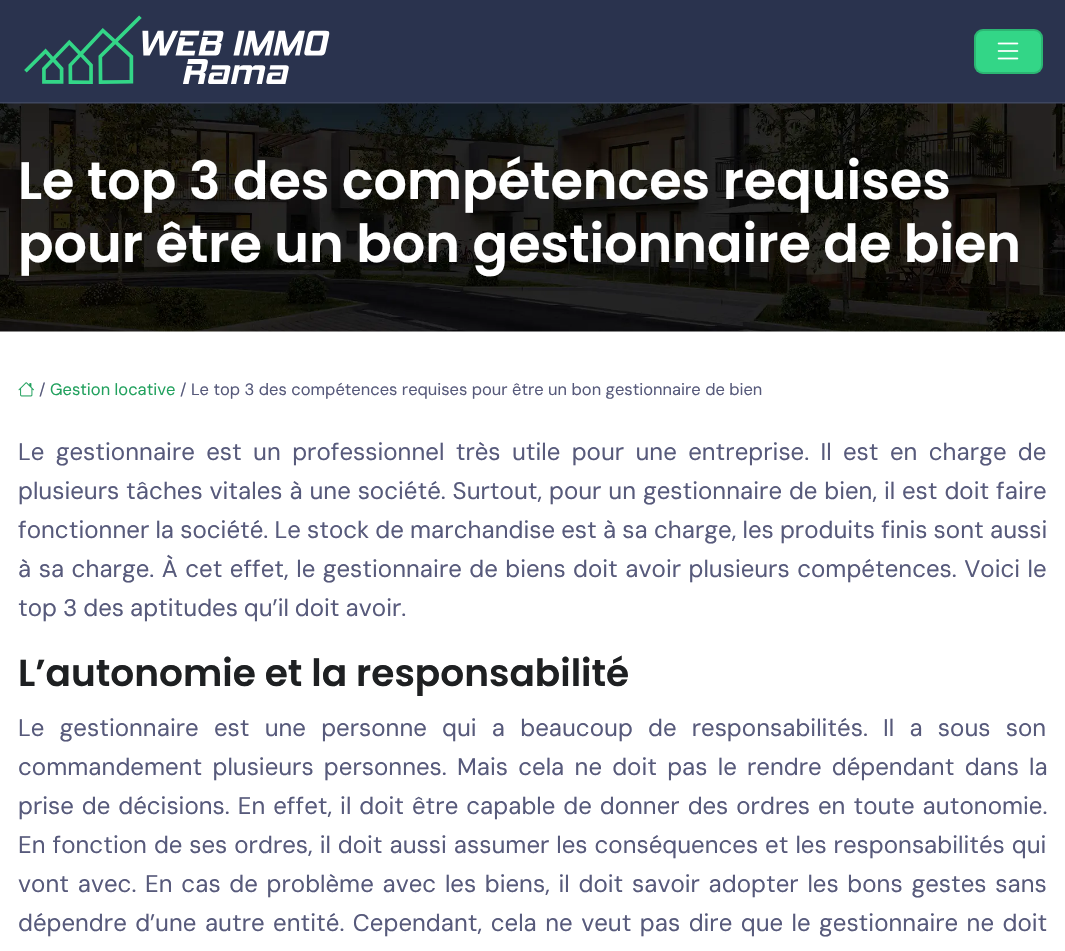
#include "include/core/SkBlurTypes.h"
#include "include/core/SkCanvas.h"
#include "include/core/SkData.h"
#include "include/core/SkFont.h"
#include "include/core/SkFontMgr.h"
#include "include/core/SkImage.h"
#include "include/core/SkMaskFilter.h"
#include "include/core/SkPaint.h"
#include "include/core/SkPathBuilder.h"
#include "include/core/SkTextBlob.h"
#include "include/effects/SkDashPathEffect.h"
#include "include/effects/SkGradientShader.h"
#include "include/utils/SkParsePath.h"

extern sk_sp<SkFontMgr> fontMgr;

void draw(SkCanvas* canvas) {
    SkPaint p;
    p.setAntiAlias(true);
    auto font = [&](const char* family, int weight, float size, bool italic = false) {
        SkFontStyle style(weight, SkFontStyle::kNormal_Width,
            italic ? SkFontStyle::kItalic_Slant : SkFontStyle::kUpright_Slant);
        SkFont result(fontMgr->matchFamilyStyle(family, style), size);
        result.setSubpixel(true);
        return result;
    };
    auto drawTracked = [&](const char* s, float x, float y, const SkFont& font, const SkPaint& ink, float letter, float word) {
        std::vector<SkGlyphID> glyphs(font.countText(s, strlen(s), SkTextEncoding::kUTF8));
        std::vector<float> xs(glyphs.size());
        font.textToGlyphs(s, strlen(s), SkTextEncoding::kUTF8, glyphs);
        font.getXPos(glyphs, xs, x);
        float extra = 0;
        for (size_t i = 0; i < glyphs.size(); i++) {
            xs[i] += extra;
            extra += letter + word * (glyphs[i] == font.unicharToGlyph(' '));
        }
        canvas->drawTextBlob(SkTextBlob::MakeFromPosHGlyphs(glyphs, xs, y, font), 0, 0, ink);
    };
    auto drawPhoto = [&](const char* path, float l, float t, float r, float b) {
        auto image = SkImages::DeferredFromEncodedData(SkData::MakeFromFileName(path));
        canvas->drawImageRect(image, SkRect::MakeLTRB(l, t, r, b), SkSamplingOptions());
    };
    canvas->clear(0xFFFFFFFF);
    p.setColor(0xFF2A334E);
    canvas->drawRect(SkRect::MakeLTRB(0, 0, 1065, 102), p);
    p.setColor(0xFF3F4760);
    canvas->drawRect(SkRect::MakeLTRB(0, 102, 1065, 104), p);
    drawPhoto("media/1.png", 24, 15, 330, 84);
    p.setColor(0xFF33D687);
    canvas->drawRoundRect(SkRect::MakeLTRB(974, 29, 1043, 74), 9, 9, p);
    p.setStyle(SkPaint::kStroke_Style);
    p.setStrokeWidth(2);
    p.setColor(0x26000000);
    canvas->drawRoundRect(SkRect::MakeLTRB(975, 30, 1042, 73), 8, 8, p);
    drawPhoto("media/2.png", 997, 42, 1019, 60);
    drawPhoto("media/3.png", 0, 103, 1065, 332);
    auto font1 = font("Poppins", 600, 52.5f);
    p.setStyle(SkPaint::kFill_Style);
    p.setColor(0xFFFFFFFF);
    canvas->drawString("Le top 3 des compétences requises", 18, 199, font1, p);
    canvas->drawString("pour être un bon gestionnaire de bien", 18, 262, font1, p);
    drawPhoto("media/4.png", 18, 382, 34, 397);
    auto font2 = font("DM Sans", 400, 16.5f);
    p.setColor(0xFF575A7B);
    canvas->drawString("/", 39, 395, font2, p);
    auto font3 = font("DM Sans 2", 400, 16.5f);
    p.setColor(0xFF22A15E);
    canvas->drawString("Gestion locative", 50, 395, font3, p);
    p.setColor(0xFF575A7B);
    canvas->drawString("/ Le top 3 des compétences requises pour être un bon gestionnaire de bien", 180, 395, font3, p);
    auto font4 = font("DM Sans", 400, 24);
    drawTracked("Le gestionnaire est un professionnel très utile pour une entreprise. Il est en charge de", 18, 460, font4, p, 0, 4.9f);
    drawTracked("plusieurs tâches vitales à une société. Surtout, pour un gestionnaire de bien, il est doit faire", 18, 499, font4, p, 0, 0.4f);
    drawTracked("fonctionner la société. Le stock de marchandise est à sa charge, les produits finis sont aussi", 18, 538, font4, p, 0, -0.3f);
    drawTracked("à sa charge. À cet effet, le gestionnaire de biens doit avoir plusieurs compétences. Voici le", 18, 577, font4, p, 0, 1);
    drawTracked("top 3 des aptitudes qu’il doit avoir.", 18, 616, font4, p, 0, -0.5f);
    auto font5 = font("Poppins", 600, 37.5f);
    p.setColor(0xFF1E2022);
    canvas->drawString("L’autonomie et la responsabilité", 18, 686, font5, p);
    p.setColor(0xFF575A7B);
    drawTracked("Le gestionnaire est une personne qui a beaucoup de responsabilités. Il a sous son", 18, 736, font4, p, 0, 8.75f);
    drawTracked("commandement plusieurs personnes. Mais cela ne doit pas le rendre dépendant dans la", 18, 775, font4, p, 0, 3.75f);
    drawTracked("prise de décisions. En effet, il doit être capable de donner des ordres en toute autonomie.", 18, 814, font4, p, 0, 1.5f);
    drawTracked("En fonction de ses ordres, il doit aussi assumer les conséquences et les responsabilités qui", 18, 853, font4, p, 0, 0.5f);
    drawTracked("vont avec. En cas de problème avec les biens, il doit savoir adopter les bons gestes sans", 18, 892, font4, p, 0, 2.25f);
    drawTracked("dépendre d’une autre entité. Cependant, cela ne veut pas dire que le gestionnaire ne doit", 18, 931, font4, p, 0, 2);
}
